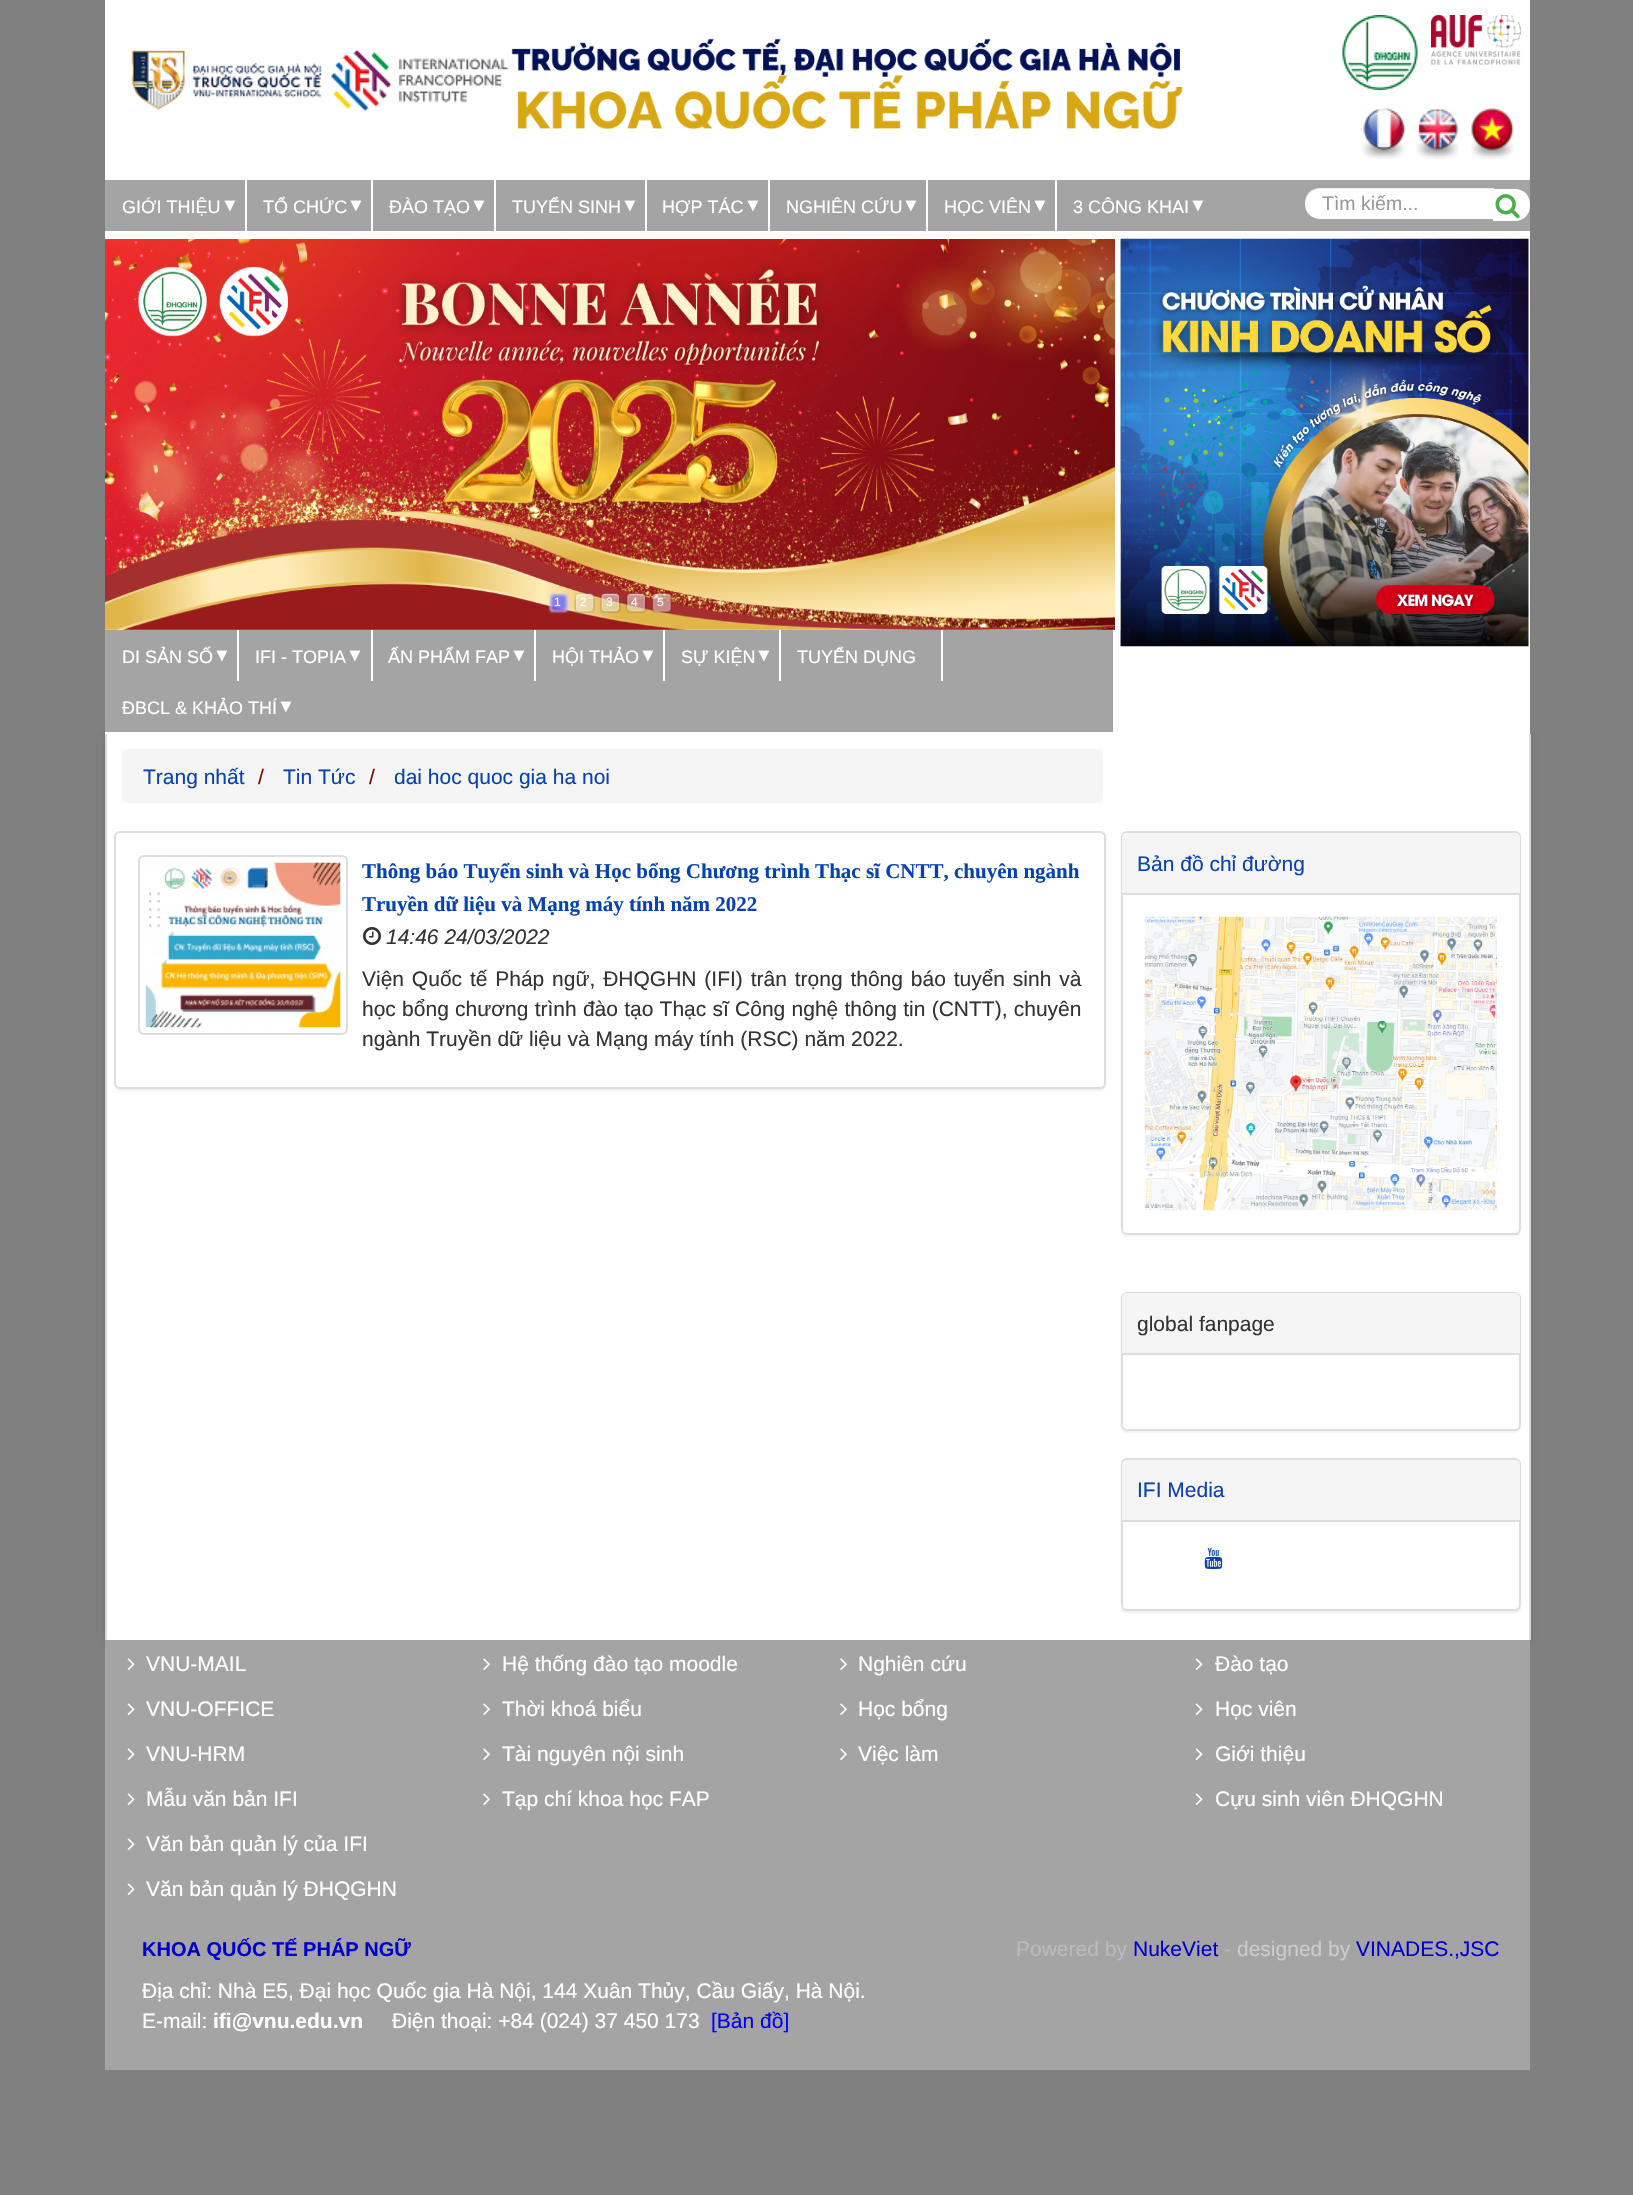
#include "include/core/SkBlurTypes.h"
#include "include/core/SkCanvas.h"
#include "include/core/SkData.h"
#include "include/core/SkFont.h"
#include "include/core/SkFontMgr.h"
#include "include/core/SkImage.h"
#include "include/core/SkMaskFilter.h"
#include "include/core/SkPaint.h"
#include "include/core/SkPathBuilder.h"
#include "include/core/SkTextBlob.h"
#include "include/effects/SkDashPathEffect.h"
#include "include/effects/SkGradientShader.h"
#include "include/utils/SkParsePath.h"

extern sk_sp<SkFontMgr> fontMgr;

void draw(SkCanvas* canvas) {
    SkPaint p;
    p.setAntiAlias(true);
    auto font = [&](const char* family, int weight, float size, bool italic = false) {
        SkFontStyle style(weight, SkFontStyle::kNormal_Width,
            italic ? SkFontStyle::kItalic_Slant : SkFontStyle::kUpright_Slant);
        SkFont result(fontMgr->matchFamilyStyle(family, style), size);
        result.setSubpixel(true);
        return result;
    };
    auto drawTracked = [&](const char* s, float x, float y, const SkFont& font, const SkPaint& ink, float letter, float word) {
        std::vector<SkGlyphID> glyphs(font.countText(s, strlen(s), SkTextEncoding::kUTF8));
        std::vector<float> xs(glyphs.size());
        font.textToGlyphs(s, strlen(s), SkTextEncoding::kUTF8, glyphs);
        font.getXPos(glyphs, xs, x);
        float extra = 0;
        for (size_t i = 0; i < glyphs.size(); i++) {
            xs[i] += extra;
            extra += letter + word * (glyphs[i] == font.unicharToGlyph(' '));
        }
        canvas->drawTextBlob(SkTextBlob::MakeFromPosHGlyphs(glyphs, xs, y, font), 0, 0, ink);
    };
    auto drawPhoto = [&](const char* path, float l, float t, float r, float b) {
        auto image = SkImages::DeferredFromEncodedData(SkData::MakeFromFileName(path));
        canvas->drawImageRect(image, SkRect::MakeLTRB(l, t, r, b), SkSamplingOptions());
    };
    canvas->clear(0xFF808080);
    p.setColor(0xFFFFFFFF);
    canvas->drawRect(SkRect::MakeLTRB(105, 0, 1530, 180), p);
    drawPhoto("media/1.png", 131, 49, 509, 111);
    drawPhoto("media/2.png", 511, 38, 1183, 130);
    drawPhoto("media/3.png", 1342, 15, 1418, 90);
    drawPhoto("media/4.png", 1431, 15, 1521, 65);
    drawPhoto("media/5.png", 1362, 107, 1406, 159);
    drawPhoto("media/6.png", 1416, 109, 1459, 159);
    drawPhoto("media/7.png", 1471, 107, 1514, 159);
    p.setColor(0xFFA4A4A4);
    canvas->drawRect(SkRect::MakeLTRB(105, 180, 1530, 231), p);
    p.setColor(0xFFFFFFFF);
    canvas->drawRect(SkRect::MakeLTRB(245, 180, 247, 231), p);
    auto font1 = font("Liberation Sans", 400, 18);
    canvas->drawString("GIỚI THIỆU", 122, 213, font1, p);
    auto font2 = font("Liberation Sans", 400, 18, true);
    canvas->drawString("▼", 221, 211, font2, p);
    canvas->drawRect(SkRect::MakeLTRB(371, 180, 373, 231), p);
    canvas->drawString("TỔ CHỨC", 263, 213, font1, p);
    canvas->drawString("▼", 347, 211, font2, p);
    canvas->drawRect(SkRect::MakeLTRB(494, 180, 496, 231), p);
    canvas->drawString("ĐÀO TẠO", 389, 213, font1, p);
    canvas->drawString("▼", 470, 211, font2, p);
    canvas->drawRect(SkRect::MakeLTRB(645, 180, 647, 231), p);
    canvas->drawString("TUYỂN SINH", 512, 213, font1, p);
    canvas->drawString("▼", 621, 211, font2, p);
    canvas->drawRect(SkRect::MakeLTRB(768, 180, 770, 231), p);
    canvas->drawString("HỢP TÁC", 662, 213, font1, p);
    canvas->drawString("▼", 744, 211, font2, p);
    canvas->drawRect(SkRect::MakeLTRB(926, 180, 928, 231), p);
    canvas->drawString("NGHIÊN CỨU", 786, 213, font1, p);
    canvas->drawString("▼", 902, 211, font2, p);
    canvas->drawRect(SkRect::MakeLTRB(1055, 180, 1057, 231), p);
    canvas->drawString("HỌC VIÊN", 944, 213, font1, p);
    canvas->drawString("▼", 1031, 211, font2, p);
    canvas->drawString("3 CÔNG KHAI", 1073, 213, font1, p);
    canvas->drawString("▼", 1189, 211, font2, p);
    canvas->drawPath(SkPathBuilder().moveTo(1493, 189).lineTo(1515, 189).cubicTo(1523.5f, 189, 1530, 195.5f, 1530, 204).lineTo(1530, 206).cubicTo(1530, 214.5f, 1523.5f, 221, 1515, 221).lineTo(1493, 221).close().detach(), p);
    canvas->drawPath(SkPathBuilder().moveTo(1320, 188).lineTo(1494, 188).lineTo(1494, 219).lineTo(1320, 219).cubicTo(1311.5f, 219, 1305, 212.5f, 1305, 204).lineTo(1305, 203).cubicTo(1305, 194.5f, 1311.5f, 188, 1320, 188).close().detach(), p);
    p.setColor(0x12000000);
    canvas->drawPath(SkPathBuilder().moveTo(1320, 189).lineTo(1494, 189).lineTo(1494, 188).lineTo(1320, 188).cubicTo(1312, 188, 1305, 195, 1305, 203).cubicTo(1306, 196, 1312, 189, 1320, 189).close().detach(), p);
    auto font3 = font("Liberation Sans", 400, 19.5f);
    p.setColor(0xFF999999);
    canvas->drawString("Tìm kiếm...", 1322, 210, font3, p);
    drawPhoto("media/8.png", 1495, 194, 1520, 219);
    p.setColor(0x26000000);
    p.setMaskFilter(SkMaskFilter::MakeBlur(kNormal_SkBlurStyle, 3));
    canvas->drawRect(SkRect::MakeLTRB(105, 734, 1530, 1640), p);
    p.setMaskFilter(nullptr);
    p.setColor(0xFFFFFFFF);
    canvas->drawRect(SkRect::MakeLTRB(105, 231, 1530, 734), p);
    drawPhoto("media/9.png", 105, 239, 1115, 630);
    drawPhoto("media/10.png", 548, 592, 570, 614);
    auto font4 = font("Liberation Sans", 400, 12);
    canvas->drawString("1", 554, 606, font4, p);
    drawPhoto("media/11.png", 574, 592, 595, 613);
    canvas->drawString("2", 580, 606, font4, p);
    drawPhoto("media/12.png", 600, 593, 621, 613);
    canvas->drawString("3", 606, 606, font4, p);
    drawPhoto("media/13.png", 625, 592, 647, 613);
    canvas->drawString("4", 631, 606, font4, p);
    drawPhoto("media/14.png", 651, 592, 672, 613);
    canvas->drawString("5", 657, 606, font4, p);
    p.setColor(0xFFA4A4A4);
    canvas->drawRect(SkRect::MakeLTRB(105, 630, 1113, 732), p);
    p.setColor(0xFFFFFFFF);
    canvas->drawRect(SkRect::MakeLTRB(237, 630, 239, 681), p);
    canvas->drawString("DI SẢN SỐ", 122, 663, font1, p);
    canvas->drawString("▼", 213, 661, font2, p);
    canvas->drawRect(SkRect::MakeLTRB(371, 630, 373, 681), p);
    canvas->drawString("IFI - TOPIA", 255, 663, font1, p);
    canvas->drawString("▼", 346, 661, font2, p);
    canvas->drawRect(SkRect::MakeLTRB(534, 630, 536, 681), p);
    canvas->drawString("ẤN PHẨM FAP", 388, 663, font1, p);
    canvas->drawString("▼", 510, 661, font2, p);
    canvas->drawRect(SkRect::MakeLTRB(663, 630, 665, 681), p);
    canvas->drawString("HỘI THẢO", 552, 663, font1, p);
    canvas->drawString("▼", 639, 661, font2, p);
    canvas->drawRect(SkRect::MakeLTRB(779, 630, 781, 681), p);
    canvas->drawString("SỰ KIỆN", 681, 663, font1, p);
    canvas->drawString("▼", 755, 661, font2, p);
    canvas->drawRect(SkRect::MakeLTRB(941, 630, 943, 681), p);
    canvas->drawString("TUYỂN DỤNG", 797, 663, font1, p);
    canvas->drawString("ĐBCL & KHẢO THÍ", 122, 714, font1, p);
    canvas->drawString("▼", 277, 712, font2, p);
    drawPhoto("media/15.png", 1120, 238, 1121, 647);
    drawPhoto("media/16.png", 1120, 238, 1529, 647);
    {
        const struct { float l, t, r, b; SkColor color; } items[] = {
            {107, 734, 1529, 1640, 0xFFFFFFFF},
            {1529, 734, 1531, 1640, 0xFFDADADA},
            {105, 734, 107, 1640, 0xFFDADADA},
        };
        for (auto [l, t, r, b, color] : items) {
            p.setColor(color);
            canvas->drawRect(SkRect::MakeLTRB(l, t, r, b), p);
        }
    }
    p.setColor(0xFFF5F5F5);
    canvas->drawRoundRect(SkRect::MakeLTRB(122, 749, 1103, 803), 6, 6, p);
    auto font5 = font("Liberation Sans", 400, 21);
    p.setColor(0xFF0742B2);
    canvas->drawString("Trang nhất", 143, 784, font5, p);
    p.setColor(0xFF880000);
    canvas->drawString("/", 258, 784, font5, p);
    p.setColor(0xFF0742B2);
    canvas->drawString("Tin Tức", 283, 784, font5, p);
    p.setColor(0xFF880000);
    canvas->drawString("/", 369, 784, font5, p);
    p.setColor(0xFF0742B2);
    canvas->drawString("dai hoc quoc gia ha noi", 394, 784, font5, p);
    p.setColor(0x0D000000);
    p.setMaskFilter(SkMaskFilter::MakeBlur(kNormal_SkBlurStyle, 1));
    canvas->drawRoundRect(SkRect::MakeLTRB(114, 833, 1106, 1091), 6, 6, p);
    p.setMaskFilter(nullptr);
    p.setColor(0xFFFFFFFF);
    canvas->drawRoundRect(SkRect::MakeLTRB(115, 832, 1105, 1088), 5, 5, p);
    p.setStyle(SkPaint::kStroke_Style);
    p.setStrokeWidth(2);
    p.setColor(0xFFDDDDDD);
    canvas->drawRoundRect(SkRect::MakeLTRB(115, 832, 1105, 1088), 5, 5, p);
    canvas->drawRoundRect(SkRect::MakeLTRB(139, 856, 347, 1034), 5, 5, p);
    drawPhoto("media/17.png", 145, 862, 341, 1028);
    auto font6 = font("Liberation Serif", 700, 21);
    p.setStyle(SkPaint::kFill_Style);
    p.setColor(0xFF0742B2);
    canvas->drawString("Thông báo Tuyển sinh và Học bổng Chương trình Thạc sĩ CNTT, chuyên ngành", 362, 878, font6, p);
    canvas->drawString("Truyền dữ liệu và Mạng máy tính năm 2022", 362, 911, font6, p);
    drawPhoto("media/18.png", 363, 927, 381, 945);
    auto font7 = font("Liberation Sans", 400, 21, true);
    p.setColor(0xFF333333);
    canvas->drawString("14:46 24/03/2022", 386, 944, font7, p);
    drawTracked("Viện Quốc tế Pháp ngữ, ĐHQGHN (IFI) trân trọng thông báo tuyển sinh và", 362, 986, font5, p, 0, 2);
    drawTracked("học bổng chương trình đào tạo Thạc sĩ Công nghệ thông tin (CNTT), chuyên", 362, 1016, font5, p, 0, 0.4f);
    canvas->drawString("ngành Truyền dữ liệu và Mạng máy tính (RSC) năm 2022.", 362, 1046, font5, p);
    p.setColor(0x0D000000);
    p.setMaskFilter(SkMaskFilter::MakeBlur(kNormal_SkBlurStyle, 1));
    canvas->drawRoundRect(SkRect::MakeLTRB(1121, 833, 1521, 1236), 6, 6, p);
    p.setMaskFilter(nullptr);
    p.setColor(0xFFFFFFFF);
    canvas->drawRoundRect(SkRect::MakeLTRB(1122, 832, 1520, 1234), 5, 5, p);
    p.setStyle(SkPaint::kStroke_Style);
    p.setColor(0xFFDDDDDD);
    canvas->drawRoundRect(SkRect::MakeLTRB(1122, 832, 1520, 1234), 5, 5, p);
    p.setStyle(SkPaint::kFill_Style);
    p.setColor(0xFFF5F5F5);
    canvas->drawPath(SkPathBuilder().moveTo(1127, 833).lineTo(1515, 833).cubicTo(1518, 833, 1520, 835, 1520, 838).lineTo(1520, 894).lineTo(1122, 894).lineTo(1122, 838).cubicTo(1122, 835, 1124, 833, 1127, 833).close().detach(), p);
    p.setColor(0xFFDDDDDD);
    canvas->drawRect(SkRect::MakeLTRB(1122, 893, 1520, 895), p);
    p.setColor(0xFF0742B2);
    canvas->drawString("Bản đồ chỉ đường", 1137, 871, font5, p);
    drawPhoto("media/19.png", 1144, 916, 1496, 1211);
    drawPhoto("media/20.png", 1495, 916, 1497, 1210);
    p.setColor(0x0D000000);
    p.setMaskFilter(SkMaskFilter::MakeBlur(kNormal_SkBlurStyle, 1));
    canvas->drawRoundRect(SkRect::MakeLTRB(1121, 1293, 1521, 1433), 6, 6, p);
    p.setMaskFilter(nullptr);
    p.setColor(0xFFFFFFFF);
    canvas->drawRoundRect(SkRect::MakeLTRB(1122, 1293, 1520, 1430), 5, 5, p);
    p.setStyle(SkPaint::kStroke_Style);
    p.setColor(0xFFDDDDDD);
    canvas->drawRoundRect(SkRect::MakeLTRB(1122, 1293, 1520, 1430), 5, 5, p);
    p.setStyle(SkPaint::kFill_Style);
    p.setColor(0xFFF5F5F5);
    canvas->drawPath(SkPathBuilder().moveTo(1127, 1293).lineTo(1515, 1293).cubicTo(1518, 1293, 1520, 1295, 1520, 1298).lineTo(1520, 1355).lineTo(1122, 1355).lineTo(1122, 1298).cubicTo(1122, 1295, 1124, 1293, 1127, 1293).close().detach(), p);
    p.setColor(0xFFDDDDDD);
    canvas->drawRect(SkRect::MakeLTRB(1122, 1353, 1520, 1355), p);
    p.setColor(0xFF333333);
    canvas->drawString("global fanpage", 1137, 1331, font5, p);
    p.setColor(0x0D000000);
    p.setMaskFilter(SkMaskFilter::MakeBlur(kNormal_SkBlurStyle, 1));
    canvas->drawRoundRect(SkRect::MakeLTRB(1121, 1460, 1521, 1613), 6, 6, p);
    p.setMaskFilter(nullptr);
    p.setColor(0xFFFFFFFF);
    canvas->drawRoundRect(SkRect::MakeLTRB(1122, 1459, 1520, 1610), 5, 5, p);
    p.setStyle(SkPaint::kStroke_Style);
    p.setColor(0xFFDDDDDD);
    canvas->drawRoundRect(SkRect::MakeLTRB(1122, 1459, 1520, 1610), 5, 5, p);
    p.setStyle(SkPaint::kFill_Style);
    p.setColor(0xFFF5F5F5);
    canvas->drawPath(SkPathBuilder().moveTo(1127, 1460).lineTo(1515, 1460).cubicTo(1518, 1460, 1520, 1462, 1520, 1465).lineTo(1520, 1521).lineTo(1122, 1521).lineTo(1122, 1465).cubicTo(1122, 1462, 1124, 1460, 1127, 1460).close().detach(), p);
    p.setColor(0xFFDDDDDD);
    canvas->drawRect(SkRect::MakeLTRB(1122, 1520, 1520, 1522), p);
    p.setColor(0xFF0742B2);
    canvas->drawString("IFI Media", 1137, 1497, font5, p);
    drawPhoto("media/21.png", 1204, 1548, 1223, 1569);
    p.setColor(0xFFA4A4A4);
    canvas->drawRect(SkRect::MakeLTRB(105, 1640, 1530, 2070), p);
    drawPhoto("media/22.png", 127, 1658, 135, 1670);
    p.setColor(0xFFFFFFFF);
    canvas->drawString("VNU-MAIL", 146, 1671, font5, p);
    drawPhoto("media/22.png", 127, 1703, 135, 1715);
    canvas->drawString("VNU-OFFICE", 146, 1716, font5, p);
    drawPhoto("media/22.png", 127, 1748, 135, 1760);
    canvas->drawString("VNU-HRM", 146, 1761, font5, p);
    drawPhoto("media/22.png", 127, 1793, 135, 1805);
    canvas->drawString("Mẫu văn bản IFI", 146, 1806, font5, p);
    drawPhoto("media/22.png", 127, 1838, 135, 1850);
    canvas->drawString("Văn bản quản lý của IFI", 146, 1851, font5, p);
    drawPhoto("media/22.png", 127, 1883, 135, 1895);
    canvas->drawString("Văn bản quản lý ĐHQGHN", 146, 1896, font5, p);
    drawPhoto("media/23.png", 483, 1658, 490, 1670);
    canvas->drawString("Hệ thống đào tạo moodle", 502, 1671, font5, p);
    drawPhoto("media/23.png", 483, 1703, 490, 1715);
    canvas->drawString("Thời khoá biểu", 502, 1716, font5, p);
    drawPhoto("media/23.png", 483, 1748, 490, 1760);
    canvas->drawString("Tài nguyên nội sinh", 502, 1761, font5, p);
    drawPhoto("media/23.png", 483, 1793, 490, 1805);
    canvas->drawString("Tạp chí khoa học FAP", 502, 1806, font5, p);
    drawPhoto("media/23.png", 840, 1658, 847, 1670);
    canvas->drawString("Nghiên cứu", 858, 1671, font5, p);
    drawPhoto("media/23.png", 840, 1703, 847, 1715);
    canvas->drawString("Học bổng", 858, 1716, font5, p);
    drawPhoto("media/23.png", 840, 1748, 847, 1760);
    canvas->drawString("Việc làm", 858, 1761, font5, p);
    drawPhoto("media/22.png", 1195, 1658, 1203, 1670);
    canvas->drawString("Đào tạo", 1215, 1671, font5, p);
    drawPhoto("media/22.png", 1195, 1703, 1203, 1715);
    canvas->drawString("Học viên", 1215, 1716, font5, p);
    drawPhoto("media/22.png", 1195, 1748, 1203, 1760);
    canvas->drawString("Giới thiệu", 1215, 1761, font5, p);
    drawPhoto("media/22.png", 1195, 1793, 1203, 1805);
    canvas->drawString("Cựu sinh viên ĐHQGHN", 1215, 1806, font5, p);
    auto font8 = font("Liberation Sans", 700, 20);
    p.setColor(0xFF0000CD);
    canvas->drawString("KHOA QUỐC TẾ PHÁP NGỮ", 142, 1956, font8, p);
    p.setColor(0xFFFFFFFF);
    canvas->drawString("Địa chỉ: Nhà E5, Đại học Quốc gia Hà Nội, 144 Xuân Thủy, Cầu Giấy, Hà Nội.", 142, 1998, font5, p);
    canvas->drawString("E-mail:", 142, 2028, font5, p);
    auto font9 = font("Liberation Sans", 700, 21);
    canvas->drawString("ifi@vnu.edu.vn", 213, 2028, font9, p);
    canvas->drawString("Điện thoại: +84 (024) 37 450 173", 392, 2028, font5, p);
    p.setColor(0xFF0000FF);
    canvas->drawString("[Bản đồ]", 711, 2028, font5, p);
    p.setColor(0xFFBBBBBB);
    canvas->drawString("Powered by", 1016, 1956, font5, p);
    p.setColor(0xFF0000CD);
    canvas->drawString("NukeViet", 1133, 1956, font5, p);
    p.setColor(0xFFBBBBBB);
    canvas->drawString("-", 1224, 1956, font5, p);
    p.setColor(0xFFCCCCCC);
    canvas->drawString("designed by", 1237, 1956, font5, p);
    p.setColor(0xFF0000CD);
    canvas->drawString("VINADES.,JSC", 1356, 1956, font5, p);
}
